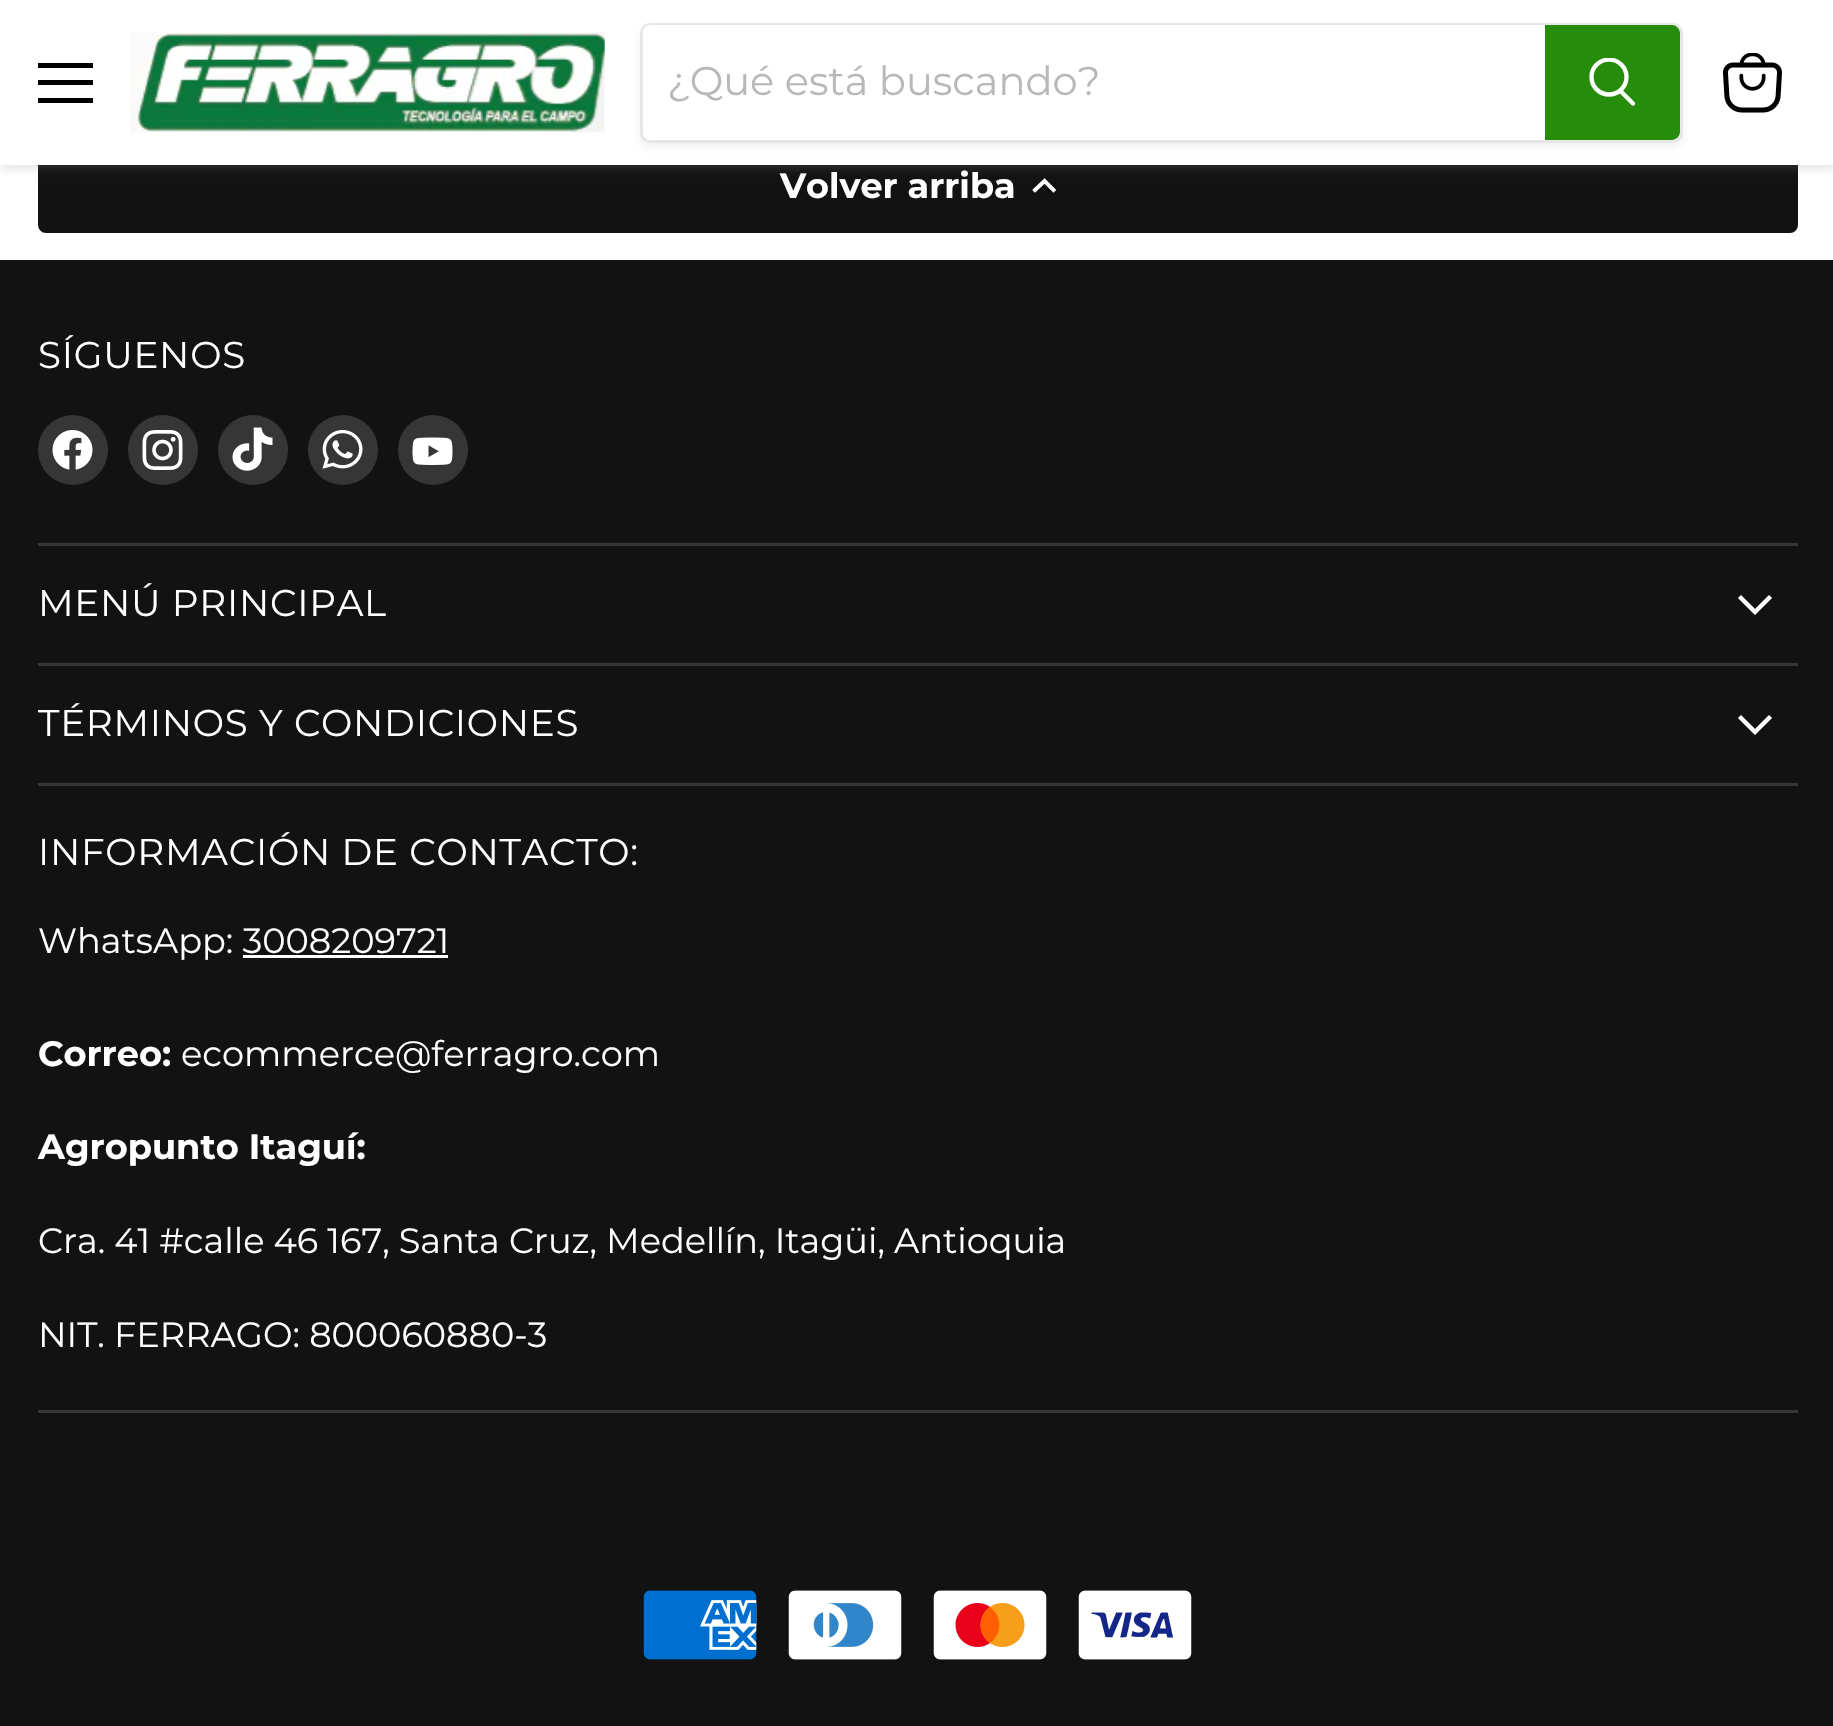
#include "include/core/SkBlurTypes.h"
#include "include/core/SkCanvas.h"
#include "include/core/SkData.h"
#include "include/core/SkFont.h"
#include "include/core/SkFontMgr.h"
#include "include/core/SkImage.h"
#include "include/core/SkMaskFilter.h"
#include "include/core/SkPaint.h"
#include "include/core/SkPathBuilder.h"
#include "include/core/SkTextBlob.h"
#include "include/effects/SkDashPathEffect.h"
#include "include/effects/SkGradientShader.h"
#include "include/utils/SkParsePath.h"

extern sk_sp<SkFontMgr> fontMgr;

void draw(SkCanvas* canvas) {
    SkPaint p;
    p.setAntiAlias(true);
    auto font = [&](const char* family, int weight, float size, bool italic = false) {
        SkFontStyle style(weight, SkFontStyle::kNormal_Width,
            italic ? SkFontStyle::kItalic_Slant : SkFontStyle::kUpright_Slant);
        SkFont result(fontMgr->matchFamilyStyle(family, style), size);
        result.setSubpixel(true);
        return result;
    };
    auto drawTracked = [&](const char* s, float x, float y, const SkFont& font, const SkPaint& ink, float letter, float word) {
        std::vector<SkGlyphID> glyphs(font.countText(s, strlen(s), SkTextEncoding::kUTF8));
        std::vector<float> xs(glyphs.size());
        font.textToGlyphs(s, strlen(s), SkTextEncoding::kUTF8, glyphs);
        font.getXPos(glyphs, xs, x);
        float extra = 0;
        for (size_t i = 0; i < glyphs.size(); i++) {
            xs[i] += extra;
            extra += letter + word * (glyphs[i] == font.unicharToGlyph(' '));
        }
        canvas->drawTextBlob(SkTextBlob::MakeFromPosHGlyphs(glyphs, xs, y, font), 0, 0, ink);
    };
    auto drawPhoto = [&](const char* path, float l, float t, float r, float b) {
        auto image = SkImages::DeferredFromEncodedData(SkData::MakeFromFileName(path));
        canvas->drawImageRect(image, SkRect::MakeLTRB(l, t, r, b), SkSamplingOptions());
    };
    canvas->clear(0xFFFFFFFF);
    p.setColor(0xFF121212);
    canvas->drawRoundRect(SkRect::MakeLTRB(39.5f, 139.5f, 1796.5f, 231.5f), 6.5f, 6.5f, p);
    p.setStyle(SkPaint::kStroke_Style);
    p.setStrokeWidth(3);
    canvas->drawRoundRect(SkRect::MakeLTRB(39.5f, 139.5f, 1796.5f, 231.5f), 6.5f, 6.5f, p);
    p.setStrokeWidth(3.9f);
    p.setStrokeCap(SkPaint::kSquare_Cap);
    p.setColor(0xFFFFFFFF);
    canvas->drawPath(SkPathBuilder().moveTo(1044.5f, 181).lineTo(1035, 190).moveTo(1044.5f, 181).lineTo(1053.5f, 190).detach(), p);
    p.setStyle(SkPaint::kFill_Style);
    p.setColor(0x40808080);
    p.setMaskFilter(SkMaskFilter::MakeBlur(kNormal_SkBlurStyle, 5));
    canvas->drawRect(SkRect::MakeLTRB(0, 3, 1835, 168), p);
    p.setMaskFilter(nullptr);
    {
        const struct { float l, t, r, b; SkColor color; } items[] = {
            {0, 0, 1833, 165, 0xFFFFFFFF},
            {38, 63, 93, 68, 0xFF000000},
            {38, 80, 93, 85, 0xFF000000},
            {38, 98, 93, 103, 0xFF000000},
        };
        for (auto [l, t, r, b, color] : items) {
            p.setColor(color);
            canvas->drawRect(SkRect::MakeLTRB(l, t, r, b), p);
        }
    }
    drawPhoto("media/1.png", 130, 32, 605, 133);
    canvas->save();
    canvas->clipPath(SkPathBuilder(SkPathFillType::kEvenOdd).moveTo(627, 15).lineTo(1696, 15).lineTo(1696, 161).lineTo(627, 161).close().moveTo(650, 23).lineTo(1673, 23).cubicTo(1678.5f, 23, 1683, 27.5f, 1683, 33).lineTo(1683, 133).cubicTo(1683, 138.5f, 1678.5f, 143, 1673, 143).lineTo(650, 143).cubicTo(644.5f, 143, 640, 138.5f, 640, 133).lineTo(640, 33).cubicTo(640, 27.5f, 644.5f, 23, 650, 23).close().detach(), true);
    p.setColor(0x1C808080);
    p.setMaskFilter(SkMaskFilter::MakeBlur(kNormal_SkBlurStyle, 4));
    canvas->drawRoundRect(SkRect::MakeLTRB(640, 28, 1683, 148), 10, 10, p);
    p.setMaskFilter(nullptr);
    canvas->restore();
    p.setStyle(SkPaint::kStroke_Style);
    p.setStrokeWidth(3);
    p.setStrokeCap(SkPaint::kButt_Cap);
    p.setColor(0x33808080);
    canvas->drawRoundRect(SkRect::MakeLTRB(641.5f, 24.5f, 1681.5f, 141.5f), 8.5f, 8.5f, p);
    p.setStyle(SkPaint::kFill_Style);
    p.setColor(0xFFFFFFFF);
    canvas->drawPath(SkPathBuilder().moveTo(651, 25).lineTo(1545, 25).lineTo(1545, 140).lineTo(651, 140).cubicTo(646.5f, 140, 643, 136.5f, 643, 132).lineTo(643, 33).cubicTo(643, 28.5f, 646.5f, 25, 651, 25).close().detach(), p);
    auto font1 = font("Montserrat", 400, 40);
    p.setColor(0xFFB8B8B8);
    canvas->drawString("¿Qué está buscando?", 667, 95, font1, p);
    p.setColor(0xFF268C0B);
    canvas->drawPath(SkPathBuilder().moveTo(1546.5f, 26.5f).lineTo(1672, 26.5f).cubicTo(1675.5f, 26.5f, 1678.5f, 29.5f, 1678.5f, 33).lineTo(1678.5f, 132).cubicTo(1678.5f, 135.5f, 1675.5f, 138.5f, 1672, 138.5f).lineTo(1546.5f, 138.5f).close().detach(), p);
    p.setStyle(SkPaint::kStroke_Style);
    canvas->drawPath(SkPathBuilder().moveTo(1546.5f, 26.5f).lineTo(1672, 26.5f).cubicTo(1675.5f, 26.5f, 1678.5f, 29.5f, 1678.5f, 33).lineTo(1678.5f, 132).cubicTo(1678.5f, 135.5f, 1675.5f, 138.5f, 1672, 138.5f).lineTo(1546.5f, 138.5f).close().detach(), p);
    p.setStrokeWidth(4.3f);
    p.setStrokeCap(SkPaint::kRound_Cap);
    p.setColor(0xFFFFFFFF);
    canvas->drawPath(SkPathBuilder().moveTo(1633, 103.5f).lineTo(1621, 91.5f).detach(), p);
    canvas->save();
    canvas->clipRect(SkRect::MakeLTRB(1588, 58, 1638, 110));
    p.setStrokeCap(SkPaint::kButt_Cap);
    canvas->drawCircle(1609, 77, 17.5f, p);
    canvas->restore();
    drawPhoto("media/2.png", 1723, 53, 1782, 113);
    auto font2 = font("Montserrat", 700, 35);
    p.setStyle(SkPaint::kFill_Style);
    canvas->drawString("Volver arriba", 780, 198, font2, p);
    p.setColor(0xFF121212);
    canvas->drawRect(SkRect::MakeLTRB(0, 260, 1833, 1726), p);
    p.setColor(0xFF363636);
    canvas->drawRect(SkRect::MakeLTRB(38, 543, 1798, 546), p);
    auto font3 = font("Montserrat", 400, 37.25f);
    p.setColor(0xFFFFFFFF);
    drawTracked("SÍGUENOS", 38, 368, font3, p, 0.75f, 0);
    p.setColor(0xFF363636);
    canvas->drawCircle(73, 450, 35, p);
    drawPhoto("media/3.png", 52, 430, 93, 470);
    canvas->drawCircle(163, 450, 35, p);
    drawPhoto("media/4.png", 142, 430, 183, 470);
    canvas->drawCircle(253, 450, 35, p);
    drawPhoto("media/5.png", 232, 427, 273, 471);
    canvas->drawCircle(343, 450, 35, p);
    drawPhoto("media/6.png", 322, 430, 363, 469);
    canvas->drawCircle(433, 450, 35, p);
    drawPhoto("media/7.png", 412, 437, 453, 465);
    canvas->drawRect(SkRect::MakeLTRB(38, 663, 1798, 666), p);
    p.setColor(0xFFFFFFFF);
    drawTracked("MENÚ PRINCIPAL", 38, 616, font3, p, 0.75f, 0);
    p.setStyle(SkPaint::kStroke_Style);
    p.setStrokeWidth(4.4f);
    p.setStrokeCap(SkPaint::kSquare_Cap);
    canvas->drawPath(SkPathBuilder().moveTo(1755, 612).lineTo(1769, 598).moveTo(1755, 612).lineTo(1741, 598).detach(), p);
    p.setStyle(SkPaint::kFill_Style);
    p.setColor(0xFF363636);
    canvas->drawRect(SkRect::MakeLTRB(38, 783, 1798, 786), p);
    p.setColor(0xFFFFFFFF);
    drawTracked("TÉRMINOS Y CONDICIONES", 38, 736, font3, p, 0.75f, 0);
    p.setStyle(SkPaint::kStroke_Style);
    canvas->drawPath(SkPathBuilder().moveTo(1755, 732).lineTo(1769, 718).moveTo(1755, 732).lineTo(1741, 718).detach(), p);
    p.setStyle(SkPaint::kFill_Style);
    p.setColor(0xFF363636);
    canvas->drawRect(SkRect::MakeLTRB(38, 1410, 1798, 1413), p);
    p.setColor(0xFFFFFFFF);
    drawTracked("INFORMACIÓN DE CONTACTO:", 38, 865, font3, p, 0.75f, 0);
    auto font4 = font("Montserrat", 400, 35.15f);
    canvas->drawString("WhatsApp: 3008209721", 38, 953, font4, p);
    canvas->drawRect(SkRect::MakeLTRB(243, 955, 448, 958), p);
    auto font5 = font("Montserrat", 700, 35.15f);
    canvas->drawString("Correo:", 38, 1066, font5, p);
    canvas->drawString("ecommerce@ferragro.com", 181, 1066, font4, p);
    canvas->drawString("Agropunto Itaguí:", 38, 1159, font5, p);
    drawTracked("Cra. 41 #calle 46 167, Santa Cruz, Medellín, Itagüi, Antioquia", 38, 1253, font4, p, 0, -0.1f);
    canvas->drawString("NIT. FERRAGO: 800060880-3", 38, 1347, font4, p);
    drawPhoto("media/8.png", 643, 1590, 757, 1660);
    drawPhoto("media/9.png", 788, 1590, 902, 1660);
    drawPhoto("media/10.png", 933, 1590, 1047, 1660);
    drawPhoto("media/11.png", 1078, 1590, 1192, 1660);
}
